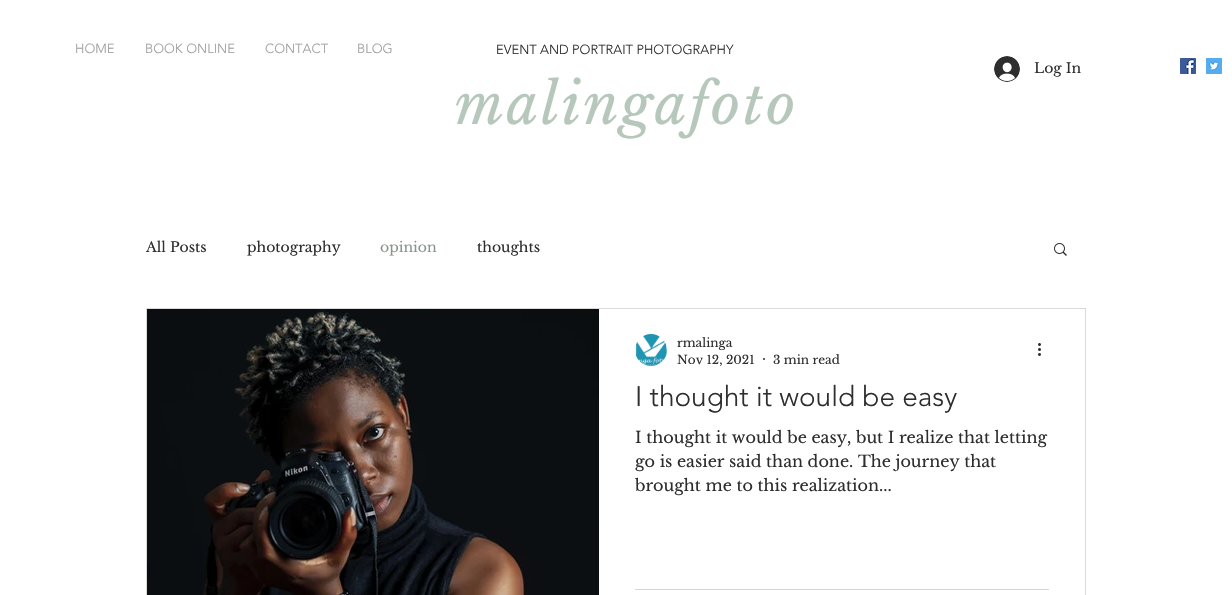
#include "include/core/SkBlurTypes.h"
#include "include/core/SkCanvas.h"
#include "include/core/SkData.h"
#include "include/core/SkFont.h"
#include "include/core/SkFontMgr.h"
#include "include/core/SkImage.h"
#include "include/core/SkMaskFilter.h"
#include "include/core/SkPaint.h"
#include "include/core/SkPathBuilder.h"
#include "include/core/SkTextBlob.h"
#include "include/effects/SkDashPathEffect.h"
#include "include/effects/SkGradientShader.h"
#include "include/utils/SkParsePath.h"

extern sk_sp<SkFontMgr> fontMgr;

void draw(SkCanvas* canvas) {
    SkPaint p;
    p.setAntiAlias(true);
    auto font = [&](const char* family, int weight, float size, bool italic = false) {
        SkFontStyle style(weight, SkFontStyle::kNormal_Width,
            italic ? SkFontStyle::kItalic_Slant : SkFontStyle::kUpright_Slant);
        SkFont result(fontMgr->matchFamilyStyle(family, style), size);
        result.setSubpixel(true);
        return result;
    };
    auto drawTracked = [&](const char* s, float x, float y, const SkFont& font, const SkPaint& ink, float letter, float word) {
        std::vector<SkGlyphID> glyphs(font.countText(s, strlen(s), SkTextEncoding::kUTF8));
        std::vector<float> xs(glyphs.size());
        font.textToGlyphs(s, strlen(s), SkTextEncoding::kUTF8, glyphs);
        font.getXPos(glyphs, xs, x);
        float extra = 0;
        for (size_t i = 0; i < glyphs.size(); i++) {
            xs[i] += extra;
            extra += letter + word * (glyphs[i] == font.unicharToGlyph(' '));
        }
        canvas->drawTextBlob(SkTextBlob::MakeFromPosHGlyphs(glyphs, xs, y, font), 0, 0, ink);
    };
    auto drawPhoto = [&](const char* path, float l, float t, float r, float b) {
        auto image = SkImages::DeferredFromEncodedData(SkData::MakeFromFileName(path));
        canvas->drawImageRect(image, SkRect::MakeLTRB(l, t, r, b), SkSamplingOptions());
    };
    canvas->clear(0xFFFFFFFF);
    auto font1 = font("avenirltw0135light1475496", 300, 13);
    p.setColor(0xFFA0A09F);
    {
        const struct { const char* s; float x, y; } items[] = {
            {"HOME", 75, 53},
            {"BOOK ONLINE", 145, 53},
            {"CONTACT", 265, 53},
            {"BLOG", 357, 53},
        };
        for (auto [s, x, y] : items) {
            canvas->drawString(s, x, y, font1, p);
        }
    }
    p.setColor(0xFF2F2E2E);
    canvas->drawString("EVENT AND PORTRAIT PHOTOGRAPHY", 496, 54, font1, p);
    drawPhoto("media/1.png", 994, 56, 1020, 82);
    auto font2 = font("Libre Baskerville", 400, 14);
    canvas->drawString("Log In", 1034, 73, font2, p);
    drawPhoto("media/2.png", 1180, 58, 1196, 74);
    drawPhoto("media/3.png", 1206, 58, 1222, 74);
    auto font3 = font("Libre Baskerville", 400, 56, true);
    p.setColor(0xFFB6C7BB);
    drawTracked("malingafoto", 455, 124, font3, p, 2.75f, 0);
    p.setColor(0xFF2F2E2E);
    canvas->drawString("All Posts", 146, 252, font2, p);
    canvas->drawString("photography", 247, 252, font2, p);
    p.setColor(0xFF89958C);
    canvas->drawString("opinion", 380, 252, font2, p);
    p.setColor(0xFF2F2E2E);
    canvas->drawString("thoughts", 477, 252, font2, p);
    drawPhoto("media/4.png", 1054, 243, 1067, 256);
    p.setStyle(SkPaint::kStroke_Style);
    p.setStrokeWidth(1);
    p.setColor(0xFFD9D9D9);
    canvas->drawRect(SkRect::MakeLTRB(146.5f, 308.5f, 1085.5f, 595.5f), p);
    drawPhoto("media/5.png", 147, 309, 599, 595);
    drawPhoto("media/6.png", 635, 334, 667, 366);
    auto font4 = font("Libre Baskerville", 400, 12);
    p.setStyle(SkPaint::kFill_Style);
    p.setColor(0xFF2F2E2E);
    canvas->drawString("rmalinga", 677, 347, font4, p);
    canvas->drawString("Nov 12, 2021", 677, 364, font4, p);
    canvas->drawCircle(764, 359, 1, p);
    canvas->drawString("3 min read", 773, 364, font4, p);
    drawPhoto("media/7.png", 1038, 343, 1041, 356);
    auto font5 = font("avenirltw0135light1475496", 300, 28);
    canvas->drawString("I thought it would be easy", 635, 406, font5, p);
    auto font6 = font("Libre Baskerville", 400, 16);
    {
        const struct { const char* s; float x, y; } items[] = {
            {"I thought it would be easy, but I realize that letting", 635, 443},
            {"go is easier said than done. The journey that", 635, 467},
            {"brought me to this realization...", 635, 491},
        };
        for (auto [s, x, y] : items) {
            canvas->drawString(s, x, y, font6, p);
        }
    }
    p.setColor(0xFFD5D5D5);
    canvas->drawRect(SkRect::MakeLTRB(635, 589, 1049, 590), p);
}
